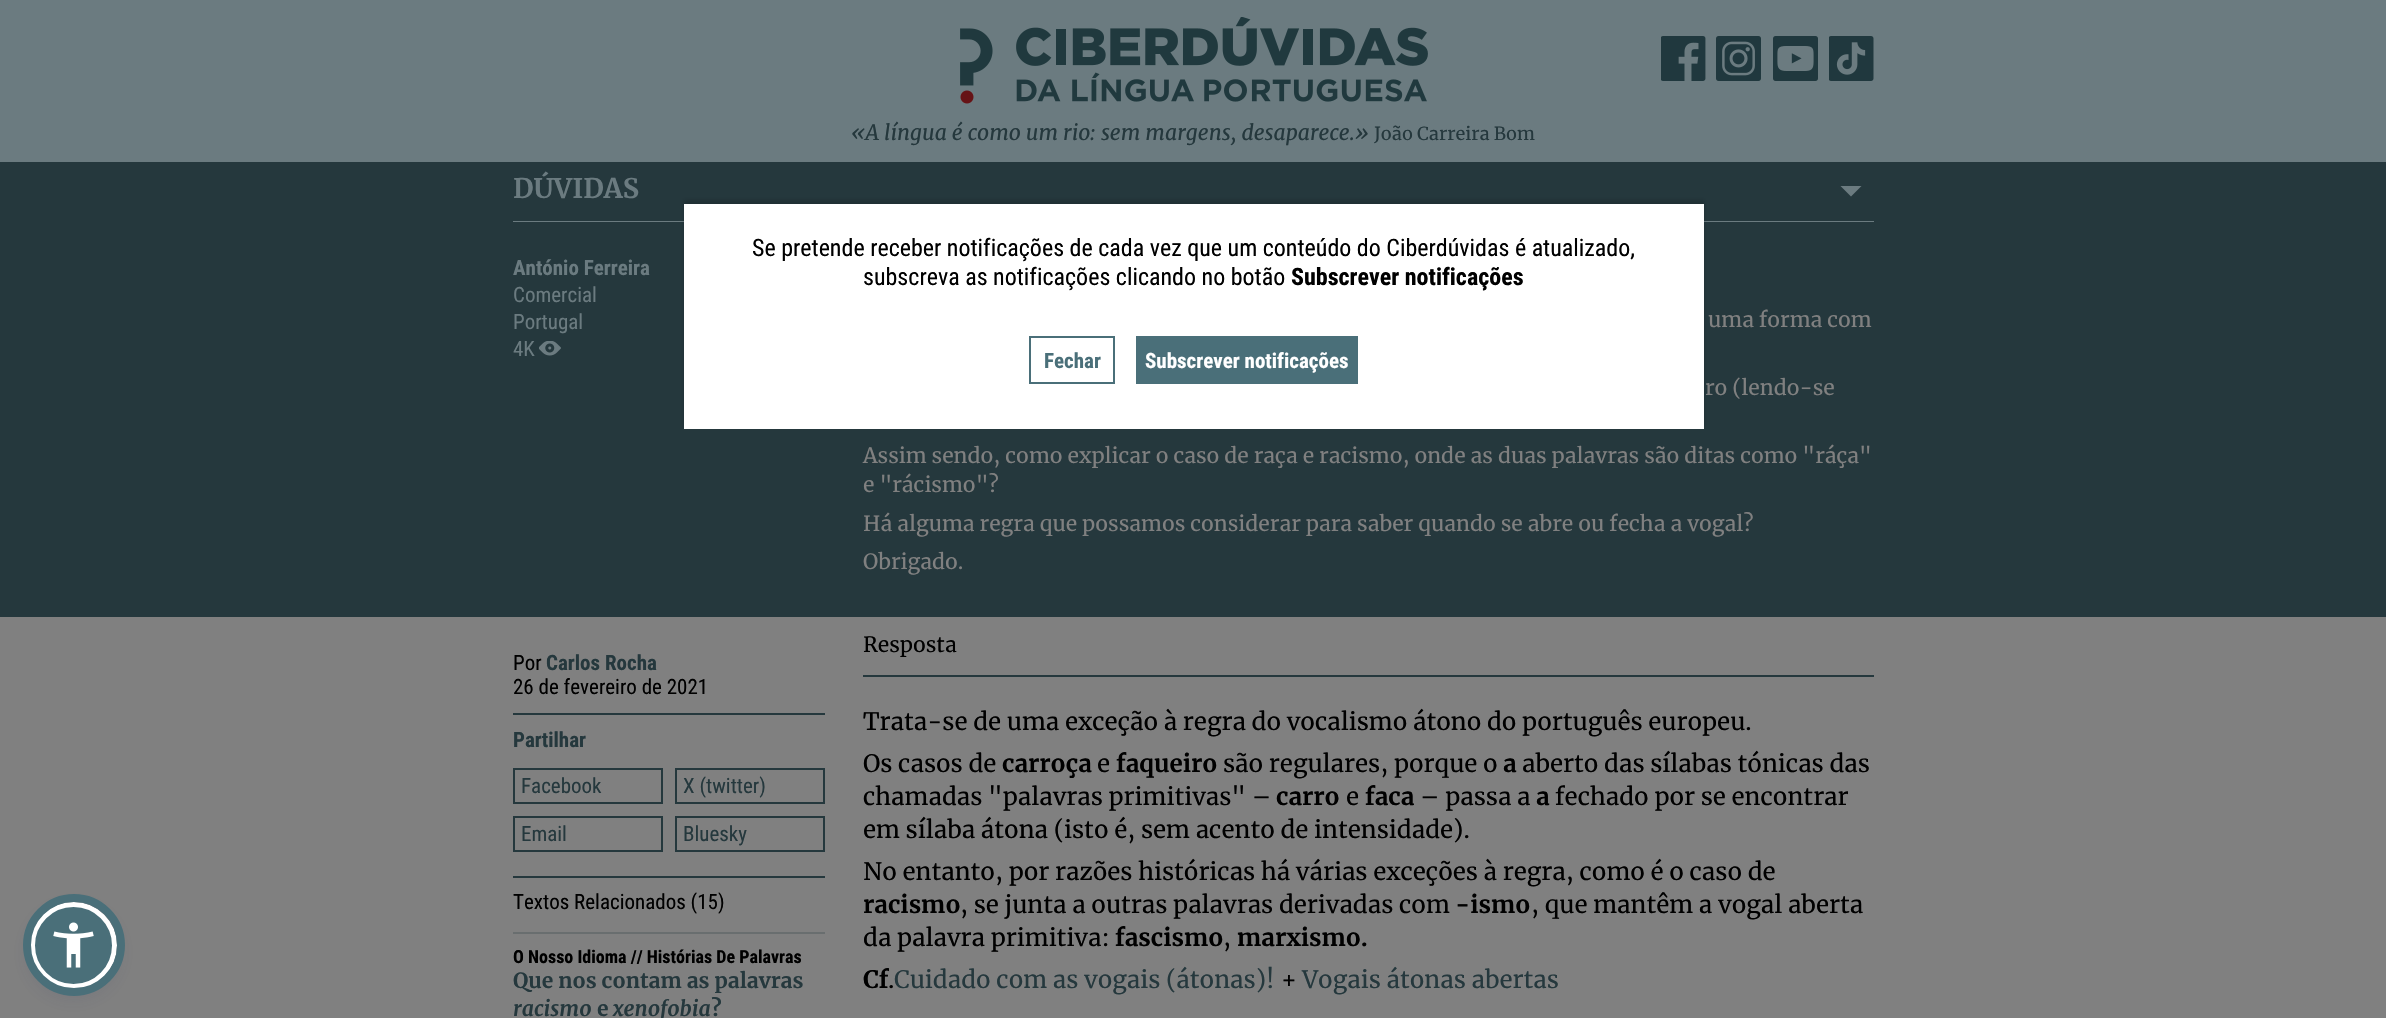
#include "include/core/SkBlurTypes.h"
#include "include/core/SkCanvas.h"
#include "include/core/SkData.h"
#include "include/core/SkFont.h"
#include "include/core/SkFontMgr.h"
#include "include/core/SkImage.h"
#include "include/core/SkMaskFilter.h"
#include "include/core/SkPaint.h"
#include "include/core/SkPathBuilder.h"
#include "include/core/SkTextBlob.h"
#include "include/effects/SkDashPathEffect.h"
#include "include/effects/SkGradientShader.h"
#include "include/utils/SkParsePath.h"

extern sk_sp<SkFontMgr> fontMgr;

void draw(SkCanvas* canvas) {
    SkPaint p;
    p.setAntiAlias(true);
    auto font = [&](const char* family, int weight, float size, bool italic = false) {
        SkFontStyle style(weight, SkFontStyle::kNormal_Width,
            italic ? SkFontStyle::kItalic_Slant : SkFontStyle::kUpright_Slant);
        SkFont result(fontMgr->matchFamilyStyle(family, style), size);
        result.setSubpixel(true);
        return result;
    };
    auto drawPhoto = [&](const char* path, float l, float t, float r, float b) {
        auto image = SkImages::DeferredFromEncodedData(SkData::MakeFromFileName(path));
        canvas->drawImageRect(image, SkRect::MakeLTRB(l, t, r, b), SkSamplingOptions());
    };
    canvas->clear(0xFF808080);
    p.setColor(0x26252C61);
    p.setMaskFilter(SkMaskFilter::MakeBlur(kNormal_SkBlurStyle, 11));
    canvas->drawRoundRect(SkRect::MakeLTRB(30, 909, 117, 996), 43.5f, 43.5f, p);
    p.setMaskFilter(nullptr);
    p.setColor(0xFF4A6F79);
    canvas->drawCircle(73.5f, 945.5f, 41, p);
    p.setStyle(SkPaint::kStroke_Style);
    p.setStrokeWidth(5);
    p.setColor(0xFFFFFFFF);
    canvas->drawCircle(73.5f, 945.5f, 41, p);
    p.setStrokeWidth(8);
    p.setColor(0xFF4A6F79);
    canvas->drawCircle(74, 945, 47, p);
    drawPhoto("media/1.png", 53, 922, 94, 968);
    p.setStyle(SkPaint::kFill_Style);
    p.setColor(0xFF6B7B80);
    canvas->drawRect(SkRect::MakeLTRB(0, 0, 2386, 162), p);
    drawPhoto("media/2.png", 960, 17, 1428, 104);
    drawPhoto("media/3.png", 1661, 36, 1706, 81);
    drawPhoto("media/4.png", 1716, 36, 1761, 81);
    drawPhoto("media/5.png", 1773, 36, 1818, 81);
    drawPhoto("media/6.png", 1829, 36, 1874, 81);
    auto font1 = font("Merriweather", 400, 21, true);
    p.setColor(0xFF25383D);
    canvas->drawString("«A língua é como um rio: sem margens, desaparece.»", 851, 140, font1, p);
    auto font2 = font("Merriweather", 400, 18);
    canvas->drawString("João Carreira Bom", 1374, 140, font2, p);
    canvas->drawRect(SkRect::MakeLTRB(0, 162, 2386, 617), p);
    p.setColor(0xFF6B7B80);
    canvas->drawRect(SkRect::MakeLTRB(513, 221, 1874, 222), p);
    auto font3 = font("Merriweather", 700, 27);
    canvas->drawString("DÚVIDAS", 513, 198, font3, p);
    canvas->drawPath(SkPathBuilder().moveTo(1840.5f, 186).lineTo(1861.5f, 186).lineTo(1851, 196.5f).close().detach(), p);
    auto font4 = font("Roboto Condensed", 700, 21);
    canvas->drawString("António Ferreira", 513, 275, font4, p);
    auto font5 = font("Roboto Condensed", 400, 21);
    {
        const struct { const char* s; float x, y; } items[] = {
            {"Comercial", 513, 302},
            {"Portugal", 513, 329},
            {"4K", 513, 356},
        };
        for (auto [s, x, y] : items) {
            canvas->drawString(s, x, y, font5, p);
        }
    }
    drawPhoto("media/7.png", 539, 341, 561, 356);
    auto font6 = font("Merriweather", 400, 21);
    p.setColor(0xFF808080);
    {
        const struct { const char* s; float x, y; } items[] = {
            {"uma forma com", 1708, 327},
            {"ro (lendo-se", 1705, 395},
            {"Assim sendo, como explicar o caso de raça e racismo, onde as duas palavras são ditas como \"ráça\"", 863, 463},
            {"e \"rácismo\"?", 863, 492},
            {"Há alguma regra que possamos considerar para saber quando se abre ou fecha a vogal?", 863, 531},
            {"Obrigado.", 863, 569},
        };
        for (auto [s, x, y] : items) {
            canvas->drawString(s, x, y, font6, p);
        }
    }
    p.setColor(0xFF000000);
    canvas->drawString("Por", 513, 670, font5, p);
    p.setColor(0xFF25383D);
    canvas->drawString("Carlos Rocha", 546, 670, font4, p);
    p.setColor(0xFF000000);
    canvas->drawString("26 de fevereiro de 2021", 513, 694, font5, p);
    p.setColor(0xFF25383D);
    canvas->drawRect(SkRect::MakeLTRB(513, 713, 825, 715), p);
    canvas->drawString("Partilhar", 513, 747, font4, p);
    p.setStyle(SkPaint::kStroke_Style);
    p.setStrokeWidth(2);
    canvas->drawRect(SkRect::MakeLTRB(514, 769, 662, 803), p);
    p.setStyle(SkPaint::kFill_Style);
    canvas->drawString("Facebook", 521, 793, font5, p);
    p.setStyle(SkPaint::kStroke_Style);
    canvas->drawRect(SkRect::MakeLTRB(676, 769, 824, 803), p);
    p.setStyle(SkPaint::kFill_Style);
    canvas->drawString("X (twitter)", 683, 793, font5, p);
    p.setStyle(SkPaint::kStroke_Style);
    canvas->drawRect(SkRect::MakeLTRB(514, 817, 662, 851), p);
    p.setStyle(SkPaint::kFill_Style);
    canvas->drawString("Email", 521, 841, font5, p);
    p.setStyle(SkPaint::kStroke_Style);
    canvas->drawRect(SkRect::MakeLTRB(676, 817, 824, 851), p);
    p.setStyle(SkPaint::kFill_Style);
    canvas->drawString("Bluesky", 683, 841, font5, p);
    canvas->drawRect(SkRect::MakeLTRB(513, 876, 825, 878), p);
    p.setColor(0xFF000000);
    canvas->drawString("Textos Relacionados (15)", 513, 909, font5, p);
    p.setColor(0xFF696E6F);
    canvas->drawRect(SkRect::MakeLTRB(513, 932, 825, 934), p);
    auto font7 = font("Roboto Condensed", 700, 18);
    p.setColor(0xFF000000);
    canvas->drawString("O Nosso Idioma // Histórias De Palavras", 513, 963, font7, p);
    auto font8 = font("Merriweather", 700, 21);
    p.setColor(0xFF25383D);
    canvas->drawString("Que nos contam as palavras", 513, 988, font8, p);
    auto font9 = font("Merriweather", 700, 21, true);
    canvas->drawString("racismo", 513, 1016, font9, p);
    canvas->drawString("e", 597, 1016, font8, p);
    canvas->drawString("xenofobia", 613, 1016, font9, p);
    canvas->drawString("?", 711, 1016, font8, p);
    canvas->drawRect(SkRect::MakeLTRB(863, 675, 1874, 677), p);
    p.setColor(0xFF000000);
    canvas->drawString("Resposta", 863, 652, font6, p);
    auto font10 = font("Merriweather", 400, 24);
    canvas->drawString("Trata-se de uma exceção à regra do vocalismo átono do português europeu.", 863, 730, font10, p);
    canvas->drawString("Os casos de", 863, 772, font10, p);
    auto font11 = font("Merriweather", 700, 24);
    canvas->drawString("carroça", 1002, 772, font11, p);
    canvas->drawString("e", 1097, 772, font10, p);
    canvas->drawString("faqueiro", 1116, 772, font11, p);
    canvas->drawString("são regulares, porque o", 1223, 772, font10, p);
    canvas->drawString("a", 1503, 772, font11, p);
    canvas->drawString("aberto das sílabas tónicas das", 1522, 772, font10, p);
    canvas->drawString("chamadas \"palavras primitivas\" –", 863, 805, font10, p);
    canvas->drawString("carro", 1276, 805, font11, p);
    canvas->drawString("e", 1346, 805, font10, p);
    canvas->drawString("faca", 1365, 805, font11, p);
    canvas->drawString("– passa a", 1420, 805, font10, p);
    canvas->drawString("a", 1536, 805, font11, p);
    {
        const struct { const char* s; float x, y; } items[] = {
            {"fechado por se encontrar", 1555, 805},
            {"em sílaba átona (isto é, sem acento de intensidade).", 863, 838},
            {"No entanto, por razões históricas há várias exceções à regra, como é o caso de", 863, 880},
        };
        for (auto [s, x, y] : items) {
            canvas->drawString(s, x, y, font10, p);
        }
    }
    canvas->drawString("racismo", 863, 913, font11, p);
    canvas->drawString(", se junta a outras palavras derivadas com", 960, 913, font10, p);
    canvas->drawString("-ismo", 1455, 913, font11, p);
    canvas->drawString(", que mantêm a vogal aberta", 1531, 913, font10, p);
    canvas->drawString("da palavra primitiva:", 863, 946, font10, p);
    canvas->drawString("fascismo", 1115, 946, font11, p);
    canvas->drawString(",", 1223, 946, font10, p);
    canvas->drawString("marxismo.", 1237, 946, font11, p);
    canvas->drawString("Cf", 863, 988, font11, p);
    p.setColor(0xFF25383D);
    canvas->drawString("Cuidado com as vogais (átonas)!", 894, 988, font10, p);
    p.setColor(0xFF000000);
    canvas->drawString("+", 1281, 988, font10, p);
    p.setColor(0xFF25383D);
    canvas->drawString("Vogais átonas abertas", 1302, 988, font10, p);
    p.setColor(0xFF000000);
    canvas->drawString(".", 888, 988, font10, p);
    p.setColor(0x26000000);
    p.setMaskFilter(SkMaskFilter::MakeBlur(kNormal_SkBlurStyle, 2));
    canvas->drawRect(SkRect::MakeLTRB(684, 200, 1704, 425), p);
    p.setMaskFilter(nullptr);
    p.setColor(0xFFFFFFFF);
    canvas->drawRect(SkRect::MakeLTRB(684, 204, 1704, 429), p);
    auto font12 = font("Roboto Condensed", 400, 24);
    p.setColor(0xFF000000);
    canvas->drawString("Se pretende receber notificações de cada vez que um conteúdo do Ciberdúvidas é atualizado,", 752, 256, font12, p);
    canvas->drawString("subscreva as notificações clicando no botão", 863, 285, font12, p);
    auto font13 = font("Roboto Condensed", 700, 24);
    canvas->drawString("Subscrever notificações", 1291, 285, font13, p);
    p.setStyle(SkPaint::kStroke_Style);
    p.setColor(0xFF4A6F79);
    canvas->drawRect(SkRect::MakeLTRB(1030, 337, 1114, 383), p);
    p.setStyle(SkPaint::kFill_Style);
    canvas->drawString("Fechar", 1044, 368, font4, p);
    canvas->drawRect(SkRect::MakeLTRB(1136, 336, 1358, 384), p);
    p.setColor(0xFFFFFFFF);
    canvas->drawString("Subscrever notificações", 1145, 368, font4, p);
}
